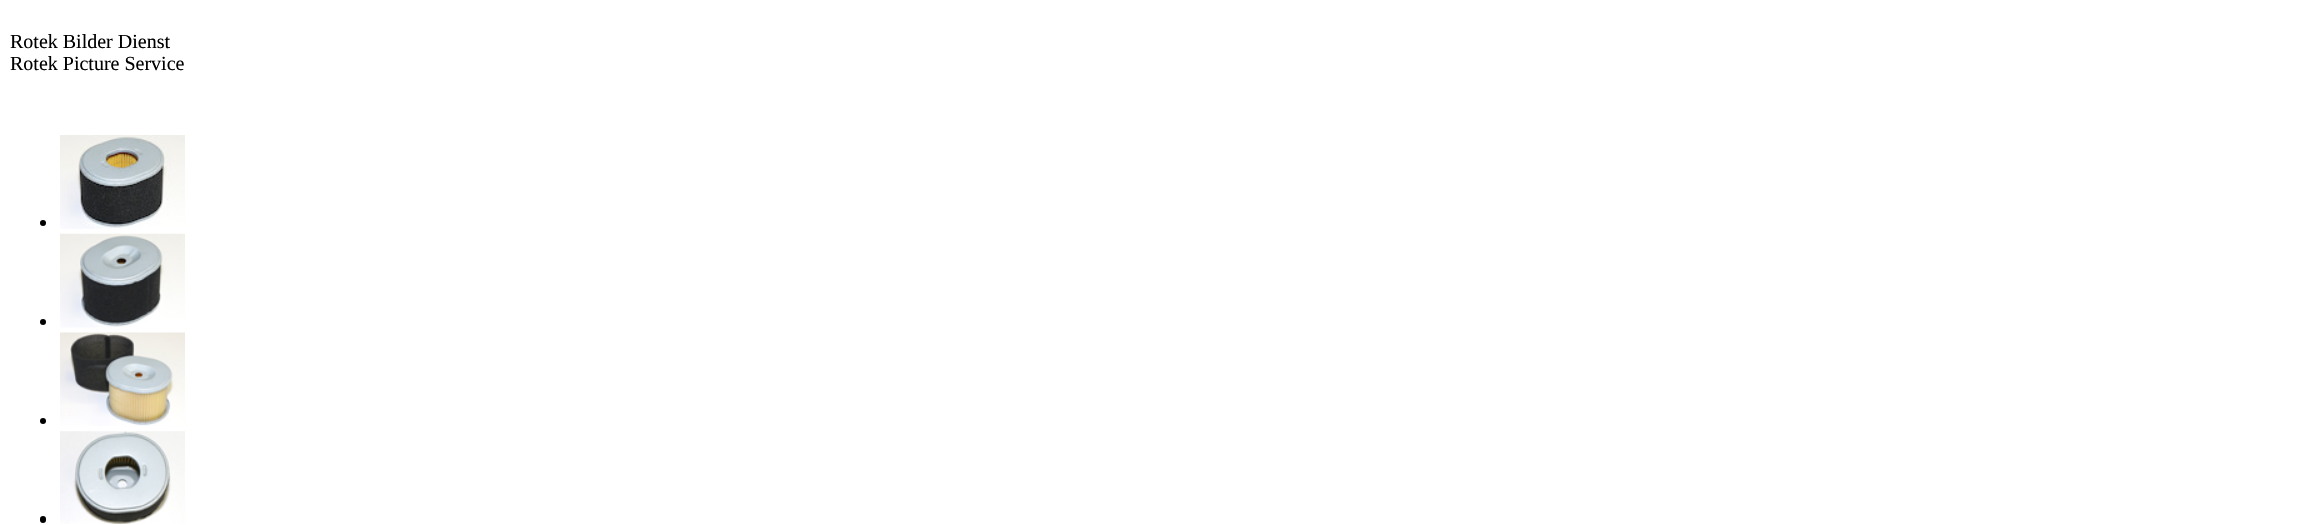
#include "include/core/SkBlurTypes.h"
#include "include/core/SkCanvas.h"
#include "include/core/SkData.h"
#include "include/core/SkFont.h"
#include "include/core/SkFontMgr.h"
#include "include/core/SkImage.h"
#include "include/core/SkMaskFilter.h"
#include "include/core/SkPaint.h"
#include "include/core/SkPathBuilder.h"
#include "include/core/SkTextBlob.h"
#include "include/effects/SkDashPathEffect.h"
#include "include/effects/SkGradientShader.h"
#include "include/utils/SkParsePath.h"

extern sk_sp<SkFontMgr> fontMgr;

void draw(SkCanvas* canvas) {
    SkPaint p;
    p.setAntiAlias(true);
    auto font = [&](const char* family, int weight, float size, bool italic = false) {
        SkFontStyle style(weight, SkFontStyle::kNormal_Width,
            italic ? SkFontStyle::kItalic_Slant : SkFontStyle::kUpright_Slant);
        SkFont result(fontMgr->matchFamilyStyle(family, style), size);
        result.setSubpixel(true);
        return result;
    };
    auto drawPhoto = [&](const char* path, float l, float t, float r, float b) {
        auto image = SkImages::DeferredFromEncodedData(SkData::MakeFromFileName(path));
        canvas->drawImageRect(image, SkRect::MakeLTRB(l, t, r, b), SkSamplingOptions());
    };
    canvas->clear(0xFFFFFFFF);
    auto font1 = font("Liberation Serif", 400, 20);
    p.setColor(0xFF000000);
    canvas->drawString("Rotek Bilder Dienst", 10, 48, font1, p);
    canvas->drawString("Rotek Picture Service", 10, 70, font1, p);
    canvas->drawCircle(43, 223, 3, p);
    drawPhoto("media/1.png", 60, 135, 185, 229);
    canvas->drawCircle(43, 322, 3, p);
    drawPhoto("media/2.png", 60, 233, 185, 328);
    canvas->drawCircle(43, 421, 3, p);
    drawPhoto("media/3.png", 60, 332, 185, 426);
    canvas->drawRoundRect(SkRect::MakeLTRB(40, 516, 46, 523), 3, 3, p);
    drawPhoto("media/4.png", 60, 431, 185, 524);
}
